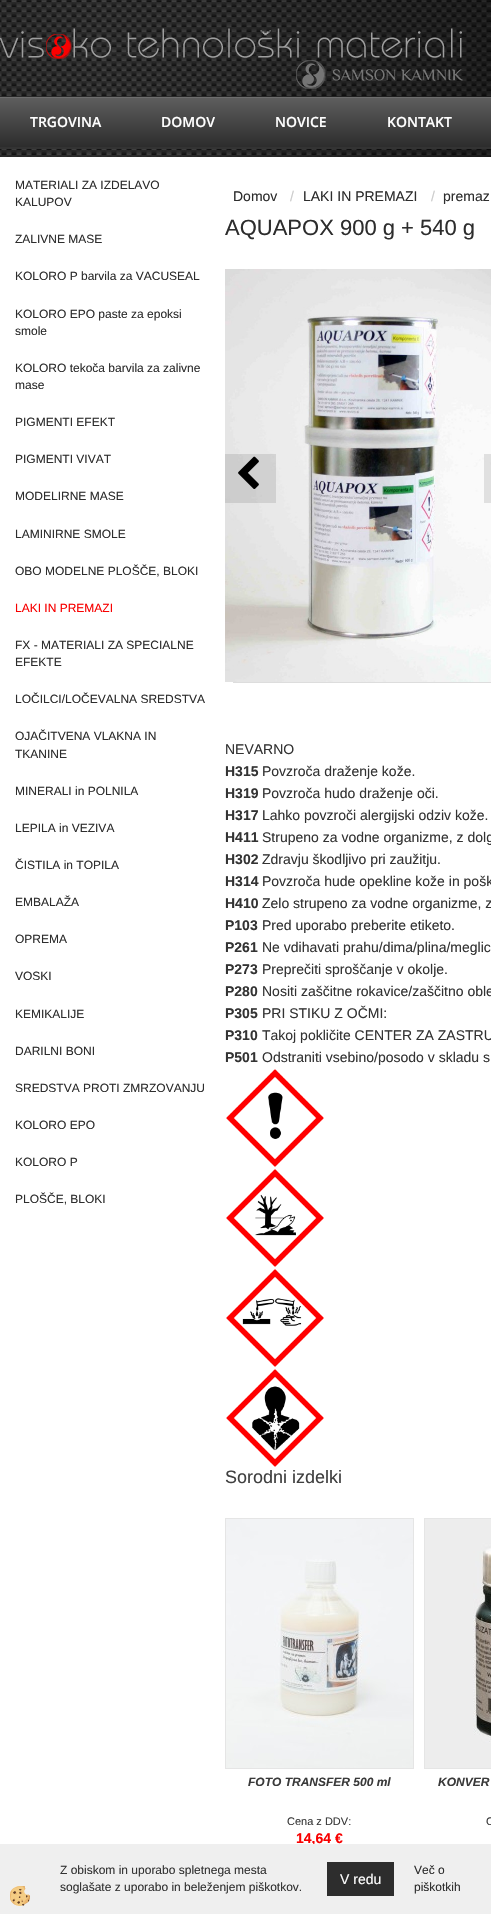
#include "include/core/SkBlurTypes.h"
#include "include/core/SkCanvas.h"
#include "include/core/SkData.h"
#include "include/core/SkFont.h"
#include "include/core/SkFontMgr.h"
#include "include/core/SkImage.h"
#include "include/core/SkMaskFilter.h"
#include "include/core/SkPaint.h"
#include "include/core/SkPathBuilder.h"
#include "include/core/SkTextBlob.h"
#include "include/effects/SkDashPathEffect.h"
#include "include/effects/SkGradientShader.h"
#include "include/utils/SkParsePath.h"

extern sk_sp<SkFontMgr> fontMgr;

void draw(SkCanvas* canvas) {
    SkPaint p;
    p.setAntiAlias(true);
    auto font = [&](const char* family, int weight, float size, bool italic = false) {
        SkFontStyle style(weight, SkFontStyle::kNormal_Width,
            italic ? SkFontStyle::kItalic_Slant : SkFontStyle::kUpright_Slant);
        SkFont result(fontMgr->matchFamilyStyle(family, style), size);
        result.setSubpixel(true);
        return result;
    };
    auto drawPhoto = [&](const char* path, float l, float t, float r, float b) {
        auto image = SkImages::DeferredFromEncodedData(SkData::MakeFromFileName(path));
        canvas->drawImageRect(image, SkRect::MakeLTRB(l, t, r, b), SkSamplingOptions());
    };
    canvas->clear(0xFFFFFFFF);
    drawPhoto("media/1.png", 0, 0, 491, 157);
    drawPhoto("media/2.png", 0, 28, 463, 89);
    {
        const SkColor colors[] = {0xFF5E5E5E, 0xFF2D2D2D};
        const float stops[] = {0, 1};
        const SkPoint ends[] = {{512, 97}, {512, 147}};
        p.setShader(SkGradientShader::MakeLinear(ends, colors, stops, 2, SkTileMode::kClamp));
        p.setAlpha(255);
    }
    canvas->drawRect(SkRect::MakeLTRB(0, 98, 491, 147), p);
    p.setShader(nullptr);
    p.setColor(0xFF333333);
    canvas->drawRect(SkRect::MakeLTRB(0, 147, 491, 149), p);
    p.setColor(0xFF6E6E6E);
    canvas->drawRect(SkRect::MakeLTRB(0, 97, 491, 98), p);
    auto font1 = font("Open Sans", 600, 14);
    p.setColor(0xFFFFFFFF);
    {
        const struct { const char* s; float x, y; } items[] = {
            {"TRGOVINA", 30, 127},
            {"DOMOV", 161, 127},
            {"NOVICE", 275, 127},
            {"KONTAKT", 387, 127},
        };
        for (auto [s, x, y] : items) {
            canvas->drawString(s, x, y, font1, p);
        }
    }
    auto font2 = font("Liberation Sans", 400, 12);
    p.setColor(0xFF2D2D2D);
    {
        const struct { const char* s; float x, y; } items[] = {
            {"MATERIALI ZA IZDELAVO", 15, 189},
            {"KALUPOV", 15, 206},
            {"ZALIVNE MASE", 15, 243},
            {"KOLORO P barvila za VACUSEAL", 15, 280},
            {"KOLORO EPO paste za epoksi", 15, 318},
            {"smole", 15, 335},
            {"KOLORO tekoča barvila za zalivne", 15, 372},
            {"mase", 15, 389},
            {"PIGMENTI EFEKT", 15, 426},
            {"PIGMENTI VIVAT", 15, 463},
            {"MODELIRNE MASE", 15, 500},
            {"LAMINIRNE SMOLE", 15, 538},
            {"OBO MODELNE PLOŠČE, BLOKI", 15, 575},
        };
        for (auto [s, x, y] : items) {
            canvas->drawString(s, x, y, font2, p);
        }
    }
    p.setColor(0xFFF80000);
    canvas->drawString("LAKI IN PREMAZI", 15, 612, font2, p);
    p.setColor(0xFF2D2D2D);
    {
        const struct { const char* s; float x, y; } items[] = {
            {"FX - MATERIALI ZA SPECIALNE", 15, 649},
            {"EFEKTE", 15, 666},
            {"LOČILCI/LOČEVALNA SREDSTVA", 15, 703},
            {"OJAČITVENA VLAKNA IN", 15, 740},
            {"TKANINE", 15, 758},
            {"MINERALI in POLNILA", 15, 795},
            {"LEPILA in VEZIVA", 15, 832},
            {"ČISTILA in TOPILA", 15, 869},
            {"EMBALAŽA", 15, 906},
            {"OPREMA", 15, 943},
            {"VOSKI", 15, 980},
            {"KEMIKALIJE", 15, 1018},
            {"DARILNI BONI", 15, 1055},
            {"SREDSTVA PROTI ZMRZOVANJU", 15, 1092},
            {"KOLORO EPO", 15, 1129},
            {"KOLORO P", 15, 1166},
            {"PLOŠČE, BLOKI", 15, 1203},
        };
        for (auto [s, x, y] : items) {
            canvas->drawString(s, x, y, font2, p);
        }
    }
    auto font3 = font("Liberation Sans", 400, 14);
    canvas->drawString("Domov", 233, 201, font3, p);
    p.setColor(0xFFCCCCCC);
    canvas->drawString("/", 290, 201, font3, p);
    p.setColor(0xFF2D2D2D);
    canvas->drawString("LAKI IN PREMAZI", 303, 201, font3, p);
    p.setColor(0xFFCCCCCC);
    canvas->drawString("/", 431, 201, font3, p);
    p.setColor(0xFF2D2D2D);
    canvas->drawString("premaz", 443, 201, font3, p);
    auto font4 = font("Liberation Sans", 400, 22);
    canvas->drawString("AQUAPOX 900 g + 540 g", 225, 235, font4, p);
    drawPhoto("media/3.png", 225, 269, 491, 682);
    p.setColor(0x1A000000);
    canvas->drawRect(SkRect::MakeLTRB(225, 454, 276, 503), p);
    drawPhoto("media/4.png", 238, 456, 259, 489);
    canvas->drawRect(SkRect::MakeLTRB(484, 454, 491, 503), p);
    p.setColor(0xFFDDDDDD);
    canvas->drawRect(SkRect::MakeLTRB(233, 682, 491, 683), p);
    p.setColor(0xFF333333);
    canvas->drawString("NEVARNO", 225, 754, font3, p);
    auto font5 = font("Liberation Sans", 700, 14);
    canvas->drawString("H315", 225, 776, font5, p);
    canvas->drawString("Povzroča draženje kože.", 262, 776, font3, p);
    canvas->drawString("H319", 225, 798, font5, p);
    canvas->drawString("Povzroča hudo draženje oči.", 262, 798, font3, p);
    canvas->drawString("H317", 225, 820, font5, p);
    canvas->drawString("Lahko povzroči alergijski odziv kože.", 262, 820, font3, p);
    canvas->drawString("H411", 225, 842, font5, p);
    canvas->drawString("Strupeno za vodne organizme, z dolg", 262, 842, font3, p);
    canvas->drawString("H302", 225, 864, font5, p);
    canvas->drawString("Zdravju škodljivo pri zaužitju.", 262, 864, font3, p);
    canvas->drawString("H314", 225, 886, font5, p);
    canvas->drawString("Povzroča hude opekline kože in pošk", 262, 886, font3, p);
    canvas->drawString("H410", 225, 908, font5, p);
    canvas->drawString("Zelo strupeno za vodne organizme, z", 262, 908, font3, p);
    canvas->drawString("P103", 225, 930, font5, p);
    canvas->drawString("Pred uporabo preberite etiketo.", 262, 930, font3, p);
    canvas->drawString("P261", 225, 952, font5, p);
    canvas->drawString("Ne vdihavati prahu/dima/plina/meglic", 262, 952, font3, p);
    canvas->drawString("P273", 225, 974, font5, p);
    canvas->drawString("Preprečiti sproščanje v okolje.", 262, 974, font3, p);
    canvas->drawString("P280", 225, 996, font5, p);
    canvas->drawString("Nositi zaščitne rokavice/zaščitno oble", 262, 996, font3, p);
    canvas->drawString("P305", 225, 1018, font5, p);
    canvas->drawString("PRI STIKU Z OČMI:", 262, 1018, font3, p);
    canvas->drawString("P310", 225, 1040, font5, p);
    canvas->drawString("Takoj pokličite CENTER ZA ZASTRU", 262, 1040, font3, p);
    canvas->drawString("P501", 225, 1062, font5, p);
    canvas->drawString("Odstraniti vsebino/posodo v skladu s", 262, 1062, font3, p);
    drawPhoto("media/5.png", 226, 1069, 324, 1167);
    drawPhoto("media/6.png", 226, 1169, 324, 1267);
    drawPhoto("media/7.png", 226, 1269, 324, 1367);
    drawPhoto("media/8.png", 226, 1369, 324, 1467);
    auto font6 = font("Liberation Sans", 400, 18);
    p.setColor(0xFF404040);
    canvas->drawString("Sorodni izdelki", 225, 1483, font6, p);
    p.setStyle(SkPaint::kStroke_Style);
    p.setStrokeWidth(1);
    p.setColor(0xFFE5E5E5);
    canvas->drawRect(SkRect::MakeLTRB(225.5f, 1518.5f, 413.5f, 1768.5f), p);
    drawPhoto("media/9.png", 226, 1519, 413, 1768);
    auto font7 = font("Liberation Sans", 700, 12, true);
    p.setStyle(SkPaint::kFill_Style);
    p.setColor(0xFF3A3A3A);
    canvas->drawString("FOTO TRANSFER 500 ml", 248, 1786, font7, p);
    auto font8 = font("Liberation Sans", 400, 11);
    canvas->drawString("Cena z DDV:", 287, 1825, font8, p);
    p.setColor(0xFFF80000);
    canvas->drawString("14,64 €", 296, 1843, font5, p);
    p.setStyle(SkPaint::kStroke_Style);
    p.setColor(0xFFE5E5E5);
    canvas->drawRect(SkRect::MakeLTRB(424.5f, 1518.5f, 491.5f, 1768.5f), p);
    drawPhoto("media/10.png", 425, 1519, 491, 1768);
    p.setStyle(SkPaint::kFill_Style);
    p.setColor(0xFF3A3A3A);
    canvas->drawString("KONVER", 438, 1786, font7, p);
    canvas->drawString("C", 486, 1825, font8, p);
    p.setColor(0xFFEFEFEF);
    canvas->drawRect(SkRect::MakeLTRB(0, 1844, 491, 1914), p);
    p.setColor(0xFF333333);
    canvas->drawString("Z obiskom in uporabo spletnega mesta", 60, 1874, font2, p);
    p.setColor(0xFF2D2D2D);
    canvas->drawRect(SkRect::MakeLTRB(327, 1862, 394, 1896), p);
    p.setColor(0xFFFFFFFF);
    canvas->drawString("V redu", 340, 1884, font3, p);
    p.setColor(0xFF2D2D2D);
    canvas->drawString("Več o", 414, 1874, font2, p);
    canvas->drawString("piškotkih", 414, 1891, font2, p);
    p.setColor(0xFF333333);
    canvas->drawString("soglašate z uporabo in beleženjem piškotkov.", 60, 1891, font2, p);
    drawPhoto("media/11.png", 10, 1886, 30, 1906);
}
